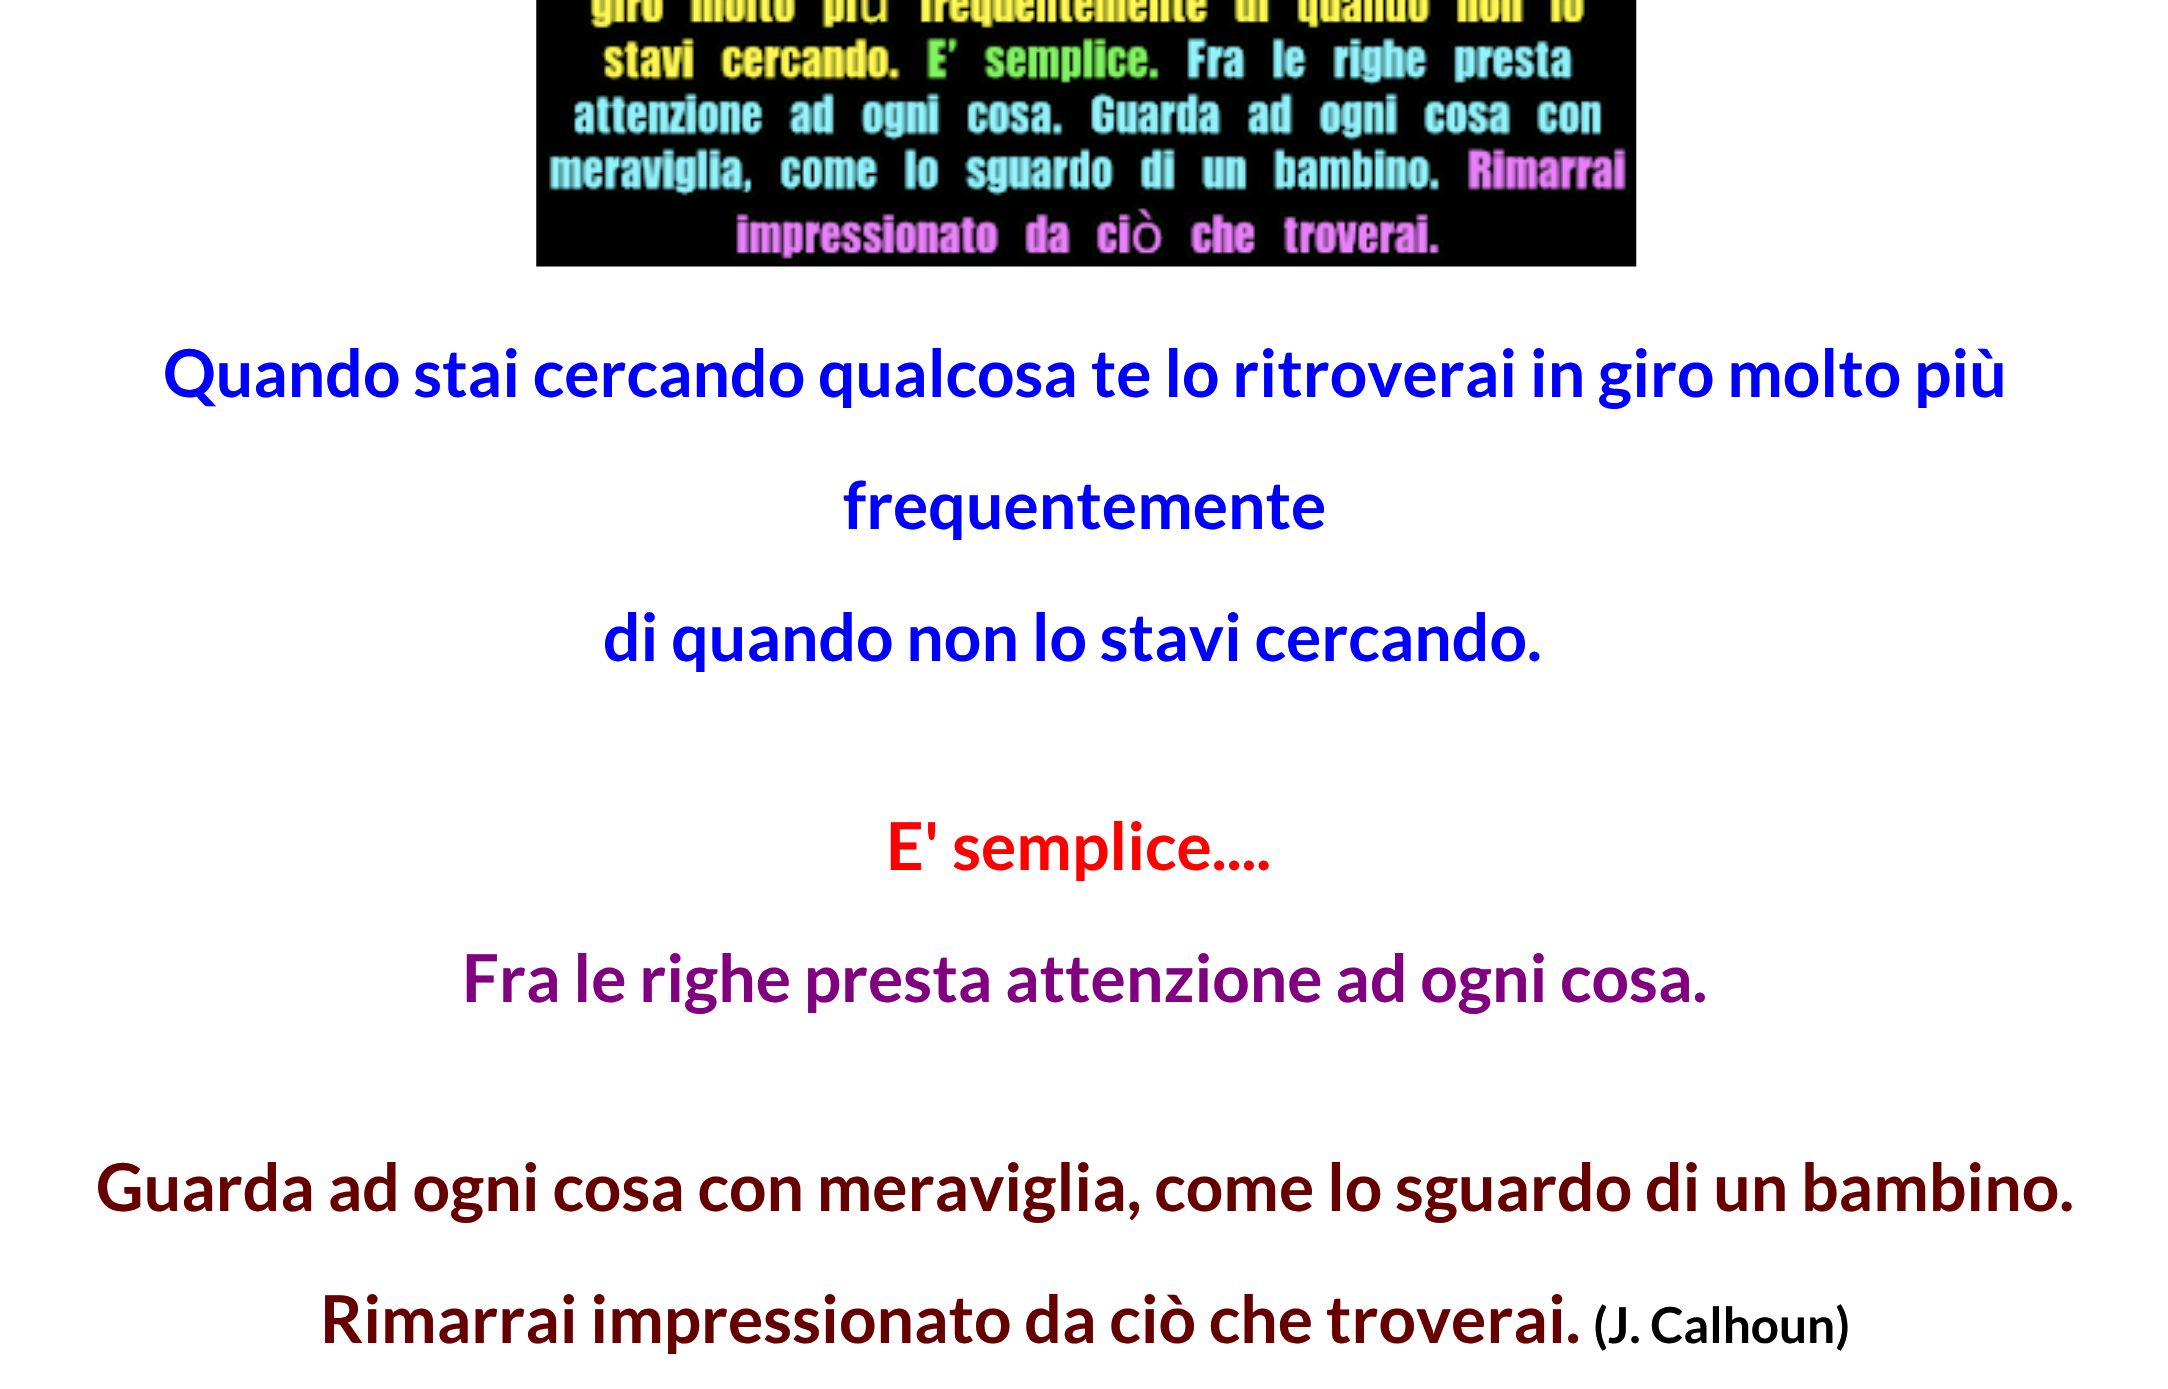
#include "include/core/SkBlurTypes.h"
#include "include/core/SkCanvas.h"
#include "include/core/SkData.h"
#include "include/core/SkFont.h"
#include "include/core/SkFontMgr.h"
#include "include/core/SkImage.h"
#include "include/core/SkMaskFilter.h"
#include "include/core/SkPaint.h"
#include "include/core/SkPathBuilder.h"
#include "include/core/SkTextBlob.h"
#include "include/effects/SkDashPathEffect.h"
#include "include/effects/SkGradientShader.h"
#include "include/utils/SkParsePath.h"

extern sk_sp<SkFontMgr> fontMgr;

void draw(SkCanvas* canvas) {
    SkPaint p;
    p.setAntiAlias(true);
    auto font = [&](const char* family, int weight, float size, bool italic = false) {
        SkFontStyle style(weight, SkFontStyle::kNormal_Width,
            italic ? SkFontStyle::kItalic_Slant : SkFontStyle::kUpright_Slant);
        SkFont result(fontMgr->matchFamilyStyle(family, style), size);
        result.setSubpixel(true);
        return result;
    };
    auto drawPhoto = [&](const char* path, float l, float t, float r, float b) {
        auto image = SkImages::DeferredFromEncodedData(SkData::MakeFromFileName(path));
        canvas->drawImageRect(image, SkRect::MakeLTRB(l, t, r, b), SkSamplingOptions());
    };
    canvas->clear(0xFFFFFFFF);
    drawPhoto("media/1.png", 536, 0, 1637, 267);
    auto font1 = font("Lato", 700, 66);
    p.setColor(0xFF0000FF);
    {
        const struct { const char* s; float x, y; } items[] = {
            {"Quando stai cercando qualcosa te lo ritroverai in giro molto più", 163, 397},
            {"frequentemente", 843, 529},
            {"di quando non lo stavi cercando.", 603, 661},
        };
        for (auto [s, x, y] : items) {
            canvas->drawString(s, x, y, font1, p);
        }
    }
    p.setColor(0xFFFF0000);
    canvas->drawString("E' semplice....", 886, 870, font1, p);
    p.setColor(0xFF800080);
    canvas->drawString("Fra le righe presta attenzione ad ogni cosa.", 462, 1002, font1, p);
    p.setColor(0xFF660000);
    canvas->drawString("Guarda ad ogni cosa con meraviglia, come lo sguardo di un bambino.", 96, 1211, font1, p);
    canvas->drawString("Rimarrai impressionato da ciò che troverai.", 320, 1343, font1, p);
    auto font2 = font("Lato", 700, 49.5f);
    p.setColor(0xFF000000);
    canvas->drawString("(J. Calhoun)", 1593, 1343, font2, p);
}
